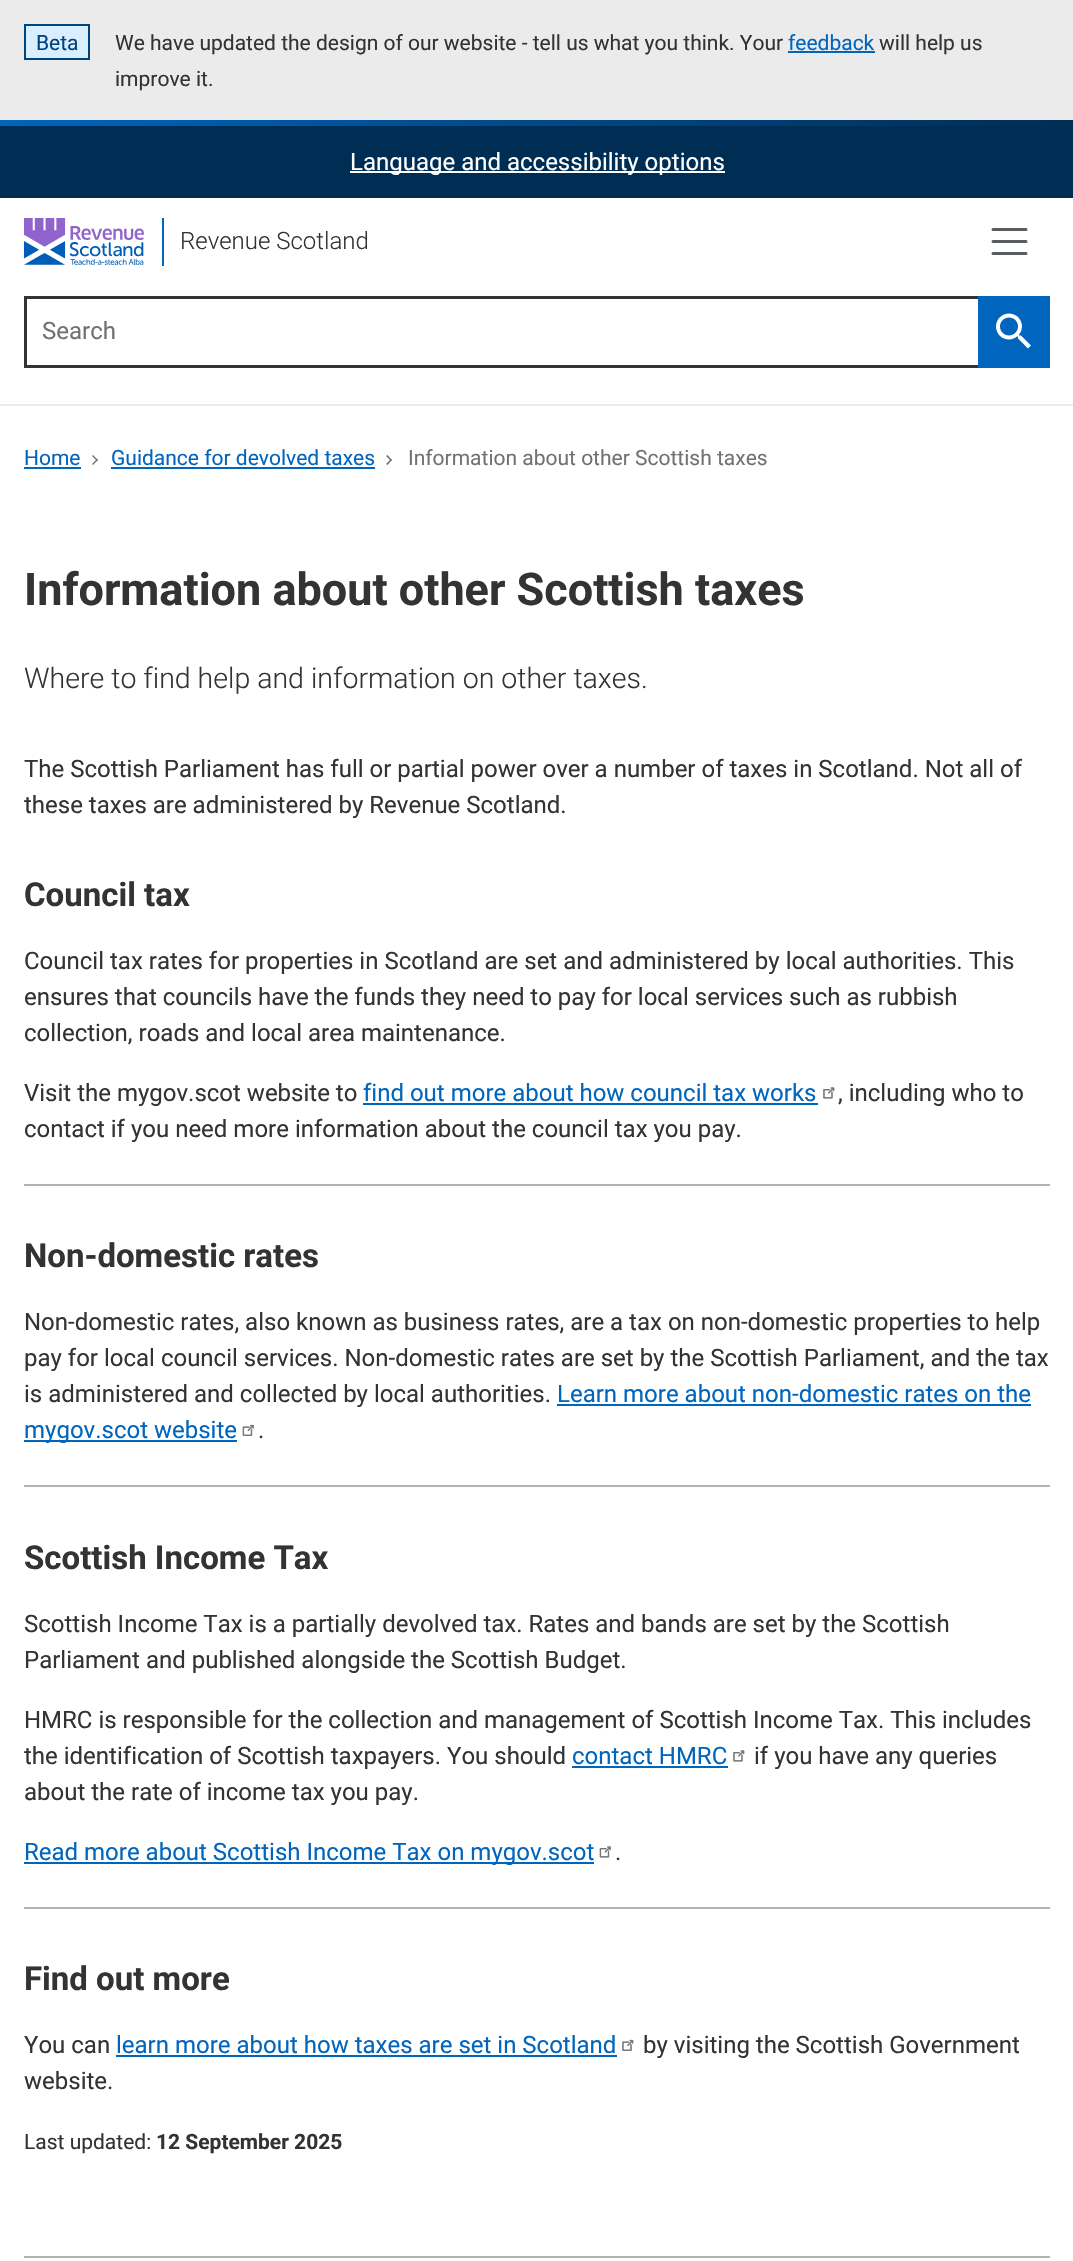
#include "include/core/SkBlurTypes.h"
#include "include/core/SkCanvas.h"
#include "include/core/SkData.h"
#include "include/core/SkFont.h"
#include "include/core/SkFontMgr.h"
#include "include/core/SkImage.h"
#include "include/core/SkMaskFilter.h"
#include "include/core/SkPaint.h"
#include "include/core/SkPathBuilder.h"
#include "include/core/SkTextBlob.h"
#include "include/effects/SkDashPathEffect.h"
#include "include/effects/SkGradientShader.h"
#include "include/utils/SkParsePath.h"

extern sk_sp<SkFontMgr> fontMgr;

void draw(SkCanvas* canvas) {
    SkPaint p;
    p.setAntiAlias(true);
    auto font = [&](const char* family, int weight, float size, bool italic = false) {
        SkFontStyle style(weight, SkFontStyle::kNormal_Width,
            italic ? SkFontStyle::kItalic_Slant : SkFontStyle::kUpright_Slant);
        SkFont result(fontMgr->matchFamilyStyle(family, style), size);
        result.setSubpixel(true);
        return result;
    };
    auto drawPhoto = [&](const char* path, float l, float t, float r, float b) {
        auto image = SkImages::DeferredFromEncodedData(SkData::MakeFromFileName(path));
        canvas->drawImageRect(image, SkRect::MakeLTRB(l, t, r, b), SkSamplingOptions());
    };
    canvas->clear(0xFFFFFFFF);
    p.setColor(0xFFEBEBEB);
    canvas->drawRect(SkRect::MakeLTRB(0, 0, 1073, 120), p);
    p.setColor(0xFFD9EEFF);
    canvas->drawRect(SkRect::MakeLTRB(26, 26, 88, 58), p);
    p.setStyle(SkPaint::kStroke_Style);
    p.setStrokeWidth(2);
    p.setColor(0xFF00437D);
    canvas->drawRect(SkRect::MakeLTRB(25, 25, 89, 59), p);
    auto font1 = font("Roboto", 400, 21);
    p.setStyle(SkPaint::kFill_Style);
    canvas->drawString("Beta", 36, 50, font1, p);
    p.setColor(0xFF333333);
    canvas->drawString("We have updated the design of our website - tell us what you think. Your", 115, 50, font1, p);
    p.setColor(0xFF0065BD);
    canvas->drawString("feedback", 788, 50, font1, p);
    canvas->drawRect(SkRect::MakeLTRB(788, 51, 875, 53), p);
    p.setColor(0xFF333333);
    canvas->drawString("will help us", 879, 50, font1, p);
    canvas->drawString("improve it.", 115, 86, font1, p);
    p.setColor(0xFFEBEBEB);
    canvas->drawRect(SkRect::MakeLTRB(0, 404, 1073, 406), p);
    drawPhoto("media/1.png", 0, 120, 1073, 126);
    p.setColor(0xFF002D54);
    canvas->drawRect(SkRect::MakeLTRB(0, 126, 1073, 198), p);
    p.setColor(0xFFFFFFFF);
    canvas->drawRect(SkRect::MakeLTRB(350, 171, 725, 173), p);
    auto font2 = font("Roboto", 400, 24);
    canvas->drawString("Language and accessibility options", 350, 170, font2, p);
    drawPhoto("media/2.png", 24, 218, 144, 265);
    p.setColor(0xFF0065BD);
    canvas->drawRect(SkRect::MakeLTRB(162, 218, 164, 266), p);
    auto font3 = font("Roboto", 300, 24);
    p.setColor(0xFF333333);
    canvas->drawString("Revenue Scotland", 180, 249, font3, p);
    p.setStyle(SkPaint::kStroke_Style);
    p.setStrokeWidth(3);
    p.setStrokeCap(SkPaint::kRound_Cap);
    p.setColor(0xFF595C5F);
    canvas->drawPath(SkPathBuilder().moveTo(993, 229.5f).lineTo(1026, 229.5f).moveTo(993, 241.5f).lineTo(1026, 241.5f).moveTo(993, 253.5f).lineTo(1026, 253.5f).detach(), p);
    p.setStrokeCap(SkPaint::kButt_Cap);
    p.setColor(0xFF333333);
    canvas->drawRect(SkRect::MakeLTRB(25.5f, 297.5f, 1048.5f, 366.5f), p);
    p.setStyle(SkPaint::kFill_Style);
    p.setColor(0xFF727272);
    canvas->drawString("Search", 42, 339, font2, p);
    p.setColor(0xFF0065BD);
    canvas->drawRect(SkRect::MakeLTRB(978, 296, 1050, 368), p);
    drawPhoto("media/3.png", 996, 313, 1031, 349);
    canvas->drawString("Home", 24, 465, font1, p);
    canvas->drawRect(SkRect::MakeLTRB(24, 467, 81, 469), p);
    p.setColor(0xFF727272);
    canvas->drawPath(SkPathBuilder().moveTo(97, 461).lineTo(92, 456).lineTo(93, 455).lineTo(98, 460).close().detach(), p);
    canvas->drawPath(SkPathBuilder().moveTo(93, 465).lineTo(92, 464).lineTo(97, 459).lineTo(98, 460).close().detach(), p);
    p.setColor(0xFF0065BD);
    canvas->drawString("Guidance for devolved taxes", 111, 465, font1, p);
    canvas->drawRect(SkRect::MakeLTRB(111, 467, 375, 469), p);
    p.setColor(0xFF727272);
    canvas->drawPath(SkPathBuilder().moveTo(391, 461).lineTo(386, 456).lineTo(387.5f, 455).lineTo(392, 460).close().detach(), p);
    canvas->drawPath(SkPathBuilder().moveTo(387.5f, 465).lineTo(386, 464).lineTo(391, 459).lineTo(392, 460).close().detach(), p);
    canvas->drawString("Information about other Scottish taxes", 408, 465, font1, p);
    auto font4 = font("Roboto", 700, 45);
    p.setColor(0xFF333333);
    canvas->drawString("Information about other Scottish taxes", 24, 605, font4, p);
    auto font5 = font("Roboto", 300, 28.5f);
    canvas->drawString("Where to find help and information on other taxes.", 24, 688, font5, p);
    canvas->drawString("The Scottish Parliament has full or partial power over a number of taxes in Scotland. Not all of", 24, 777, font2, p);
    canvas->drawString("these taxes are administered by Revenue Scotland.", 24, 813, font2, p);
    auto font6 = font("Roboto", 700, 33);
    canvas->drawString("Council tax", 24, 906, font6, p);
    {
        const struct { const char* s; float x, y; } items[] = {
            {"Council tax rates for properties in Scotland are set and administered by local authorities. This", 24, 969},
            {"ensures that councils have the funds they need to pay for local services such as rubbish", 24, 1005},
            {"collection, roads and local area maintenance.", 24, 1041},
            {"Visit the mygov.scot website to", 24, 1101},
        };
        for (auto [s, x, y] : items) {
            canvas->drawString(s, x, y, font2, p);
        }
    }
    p.setColor(0xFF0065BD);
    canvas->drawString("find out more about how council tax works", 363, 1101, font2, p);
    canvas->drawRect(SkRect::MakeLTRB(363, 1103, 818, 1105), p);
    drawPhoto("media/4.png", 823, 1087, 835, 1099);
    p.setColor(0xFF333333);
    canvas->drawString(", including who to", 838, 1101, font2, p);
    canvas->drawString("contact if you need more information about the council tax you pay.", 24, 1137, font2, p);
    p.setColor(0xFFB3B3B3);
    canvas->drawRect(SkRect::MakeLTRB(24, 1184, 1050, 1186), p);
    p.setColor(0xFF333333);
    canvas->drawString("Non-domestic rates", 24, 1267, font6, p);
    {
        const struct { const char* s; float x, y; } items[] = {
            {"Non-domestic rates, also known as business rates, are a tax on non-domestic properties to help", 24, 1330},
            {"pay for local council services. Non-domestic rates are set by the Scottish Parliament, and the tax", 24, 1366},
            {"is administered and collected by local authorities.", 24, 1402},
        };
        for (auto [s, x, y] : items) {
            canvas->drawString(s, x, y, font2, p);
        }
    }
    p.setColor(0xFF0065BD);
    canvas->drawString("Learn more about non-domestic rates on the", 557, 1402, font2, p);
    canvas->drawRect(SkRect::MakeLTRB(557, 1404, 1031, 1406), p);
    canvas->drawRect(SkRect::MakeLTRB(24, 1440, 237, 1442), p);
    canvas->drawString("mygov.scot website", 24, 1438, font2, p);
    drawPhoto("media/5.png", 242, 1424, 254, 1436);
    p.setColor(0xFF333333);
    canvas->drawString(".", 258, 1438, font2, p);
    p.setColor(0xFFB3B3B3);
    canvas->drawRect(SkRect::MakeLTRB(24, 1485, 1050, 1487), p);
    p.setColor(0xFF333333);
    canvas->drawString("Scottish Income Tax", 24, 1569, font6, p);
    {
        const struct { const char* s; float x, y; } items[] = {
            {"Scottish Income Tax is a partially devolved tax. Rates and bands are set by the Scottish", 24, 1632},
            {"Parliament and published alongside the Scottish Budget.", 24, 1668},
            {"HMRC is responsible for the collection and management of Scottish Income Tax. This includes", 24, 1728},
            {"the identification of Scottish taxpayers. You should", 24, 1764},
        };
        for (auto [s, x, y] : items) {
            canvas->drawString(s, x, y, font2, p);
        }
    }
    p.setColor(0xFF0065BD);
    canvas->drawString("contact HMRC", 572, 1764, font2, p);
    canvas->drawRect(SkRect::MakeLTRB(572, 1766, 728, 1768), p);
    drawPhoto("media/4.png", 733, 1750, 745, 1762);
    p.setColor(0xFF333333);
    canvas->drawString("if you have any queries", 754, 1764, font2, p);
    canvas->drawString("about the rate of income tax you pay.", 24, 1800, font2, p);
    p.setColor(0xFF0065BD);
    canvas->drawRect(SkRect::MakeLTRB(24, 1862, 594, 1864), p);
    canvas->drawString("Read more about Scottish Income Tax on mygov.scot", 24, 1860, font2, p);
    drawPhoto("media/6.png", 599, 1846, 611, 1858);
    p.setColor(0xFF333333);
    canvas->drawString(".", 615, 1860, font2, p);
    p.setColor(0xFFB3B3B3);
    canvas->drawRect(SkRect::MakeLTRB(24, 1907, 1050, 1909), p);
    p.setColor(0xFF333333);
    canvas->drawString("Find out more", 24, 1990, font6, p);
    canvas->drawString("You can", 24, 2053, font2, p);
    p.setColor(0xFF0065BD);
    canvas->drawString("learn more about how taxes are set in Scotland", 116, 2053, font2, p);
    canvas->drawRect(SkRect::MakeLTRB(116, 2055, 617, 2057), p);
    drawPhoto("media/7.png", 622, 2039, 634, 2051);
    p.setColor(0xFF333333);
    canvas->drawString("by visiting the Scottish Government", 643, 2053, font2, p);
    canvas->drawString("website.", 24, 2089, font2, p);
    canvas->drawString("Last updated:", 24, 2149, font1, p);
    auto font7 = font("Roboto", 700, 21);
    canvas->drawString("12 September 2025", 156, 2149, font7, p);
    p.setColor(0xFFB3B3B3);
    canvas->drawRect(SkRect::MakeLTRB(24, 2256, 1050, 2258), p);
}
